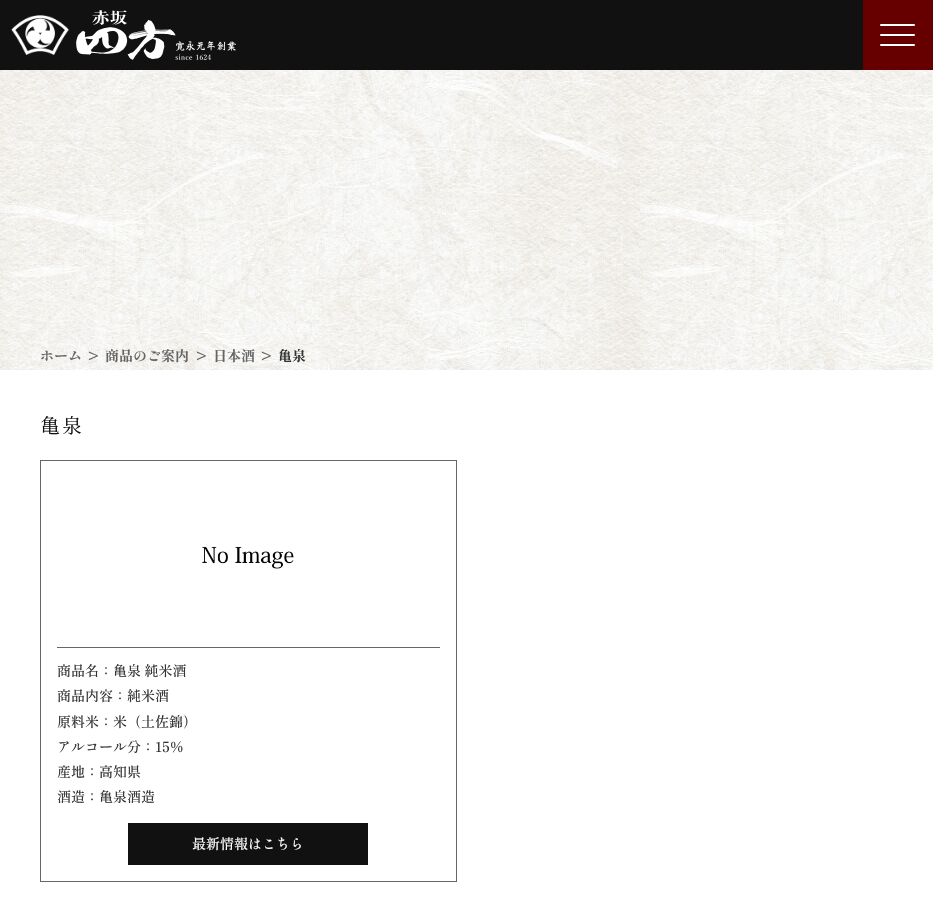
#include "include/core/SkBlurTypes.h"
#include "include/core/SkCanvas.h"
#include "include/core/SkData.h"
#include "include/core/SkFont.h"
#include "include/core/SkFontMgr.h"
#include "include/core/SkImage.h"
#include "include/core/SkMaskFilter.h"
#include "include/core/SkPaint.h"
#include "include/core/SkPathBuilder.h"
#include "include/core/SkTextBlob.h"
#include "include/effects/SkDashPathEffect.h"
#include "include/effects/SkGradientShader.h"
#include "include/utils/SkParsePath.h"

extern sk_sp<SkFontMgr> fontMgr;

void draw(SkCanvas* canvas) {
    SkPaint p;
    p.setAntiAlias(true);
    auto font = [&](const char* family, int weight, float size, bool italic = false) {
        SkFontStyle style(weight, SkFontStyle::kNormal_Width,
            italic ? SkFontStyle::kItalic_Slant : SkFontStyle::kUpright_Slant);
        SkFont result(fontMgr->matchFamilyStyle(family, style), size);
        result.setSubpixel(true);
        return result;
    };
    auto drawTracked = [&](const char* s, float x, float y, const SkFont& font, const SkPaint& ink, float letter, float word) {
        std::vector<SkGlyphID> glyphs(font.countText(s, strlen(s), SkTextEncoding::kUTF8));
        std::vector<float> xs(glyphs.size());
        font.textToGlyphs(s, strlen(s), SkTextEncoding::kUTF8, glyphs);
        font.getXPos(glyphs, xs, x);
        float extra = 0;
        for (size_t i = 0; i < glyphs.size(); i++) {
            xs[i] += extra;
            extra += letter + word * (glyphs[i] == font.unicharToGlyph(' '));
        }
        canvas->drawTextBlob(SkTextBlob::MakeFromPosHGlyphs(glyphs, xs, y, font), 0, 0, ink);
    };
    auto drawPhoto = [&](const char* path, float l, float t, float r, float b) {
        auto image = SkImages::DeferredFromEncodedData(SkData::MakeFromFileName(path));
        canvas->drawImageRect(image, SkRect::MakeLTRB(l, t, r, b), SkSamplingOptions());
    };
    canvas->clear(0xFFFFFFFF);
    drawPhoto("media/1.png", 0, 70, 933, 370);
    p.setColor(0xFF111111);
    canvas->drawRect(SkRect::MakeLTRB(0, 0, 863, 70), p);
    drawPhoto("media/2.png", 11, 15, 69, 55);
    drawPhoto("media/3.png", 76, 10, 236, 60);
    p.setColor(0xFF660000);
    canvas->drawRect(SkRect::MakeLTRB(863, 0, 933, 70), p);
    p.setColor(0xFFFFFFFF);
    canvas->drawRoundRect(SkRect::MakeLTRB(880, 24, 915, 26), 1, 1, p);
    canvas->drawRoundRect(SkRect::MakeLTRB(880, 34, 915, 36), 1, 1, p);
    canvas->drawRoundRect(SkRect::MakeLTRB(880, 44, 915, 46), 1, 1, p);
    auto font1 = font("Shippori Mincho", 700, 14);
    p.setColor(0xFF666666);
    {
        const struct { const char* s; float x, y; } items[] = {
            {"ホーム", 40, 361},
            {">", 88, 361},
            {"商品のご案内", 105, 361},
            {">", 196, 361},
            {"日本酒", 213, 361},
            {">", 261, 361},
        };
        for (auto [s, x, y] : items) {
            canvas->drawString(s, x, y, font1, p);
        }
    }
    p.setColor(0xFF333333);
    canvas->drawString("亀泉", 278, 361, font1, p);
    auto font2 = font("Shippori Mincho", 400, 20);
    p.setColor(0xFF111111);
    drawTracked("亀泉", 40, 433, font2, p, 2, 0);
    p.setStyle(SkPaint::kStroke_Style);
    p.setStrokeWidth(1);
    p.setColor(0xFF666666);
    canvas->drawRect(SkRect::MakeLTRB(40.5f, 460.5f, 456.5f, 881.5f), p);
    p.setStyle(SkPaint::kFill_Style);
    canvas->drawRect(SkRect::MakeLTRB(57, 647, 440, 648), p);
    drawPhoto("media/4.png", 202, 546, 294, 569);
    auto font3 = font("Shippori Mincho", 500, 14);
    p.setColor(0xFF333333);
    {
        const struct { const char* s; float x, y; } items[] = {
            {"商品名：亀泉 純米酒", 57, 676},
            {"商品内容：純米酒", 57, 701},
            {"原料米：米（土佐錦）", 57, 727},
            {"アルコール分：15％", 57, 752},
            {"産地：高知県", 57, 777},
            {"酒造：亀泉酒造", 57, 802},
        };
        for (auto [s, x, y] : items) {
            canvas->drawString(s, x, y, font3, p);
        }
    }
    p.setColor(0xFF111111);
    canvas->drawRect(SkRect::MakeLTRB(128, 823, 368, 865), p);
    p.setColor(0xFFFFFFFF);
    canvas->drawString("最新情報はこちら", 192, 849, font3, p);
}
